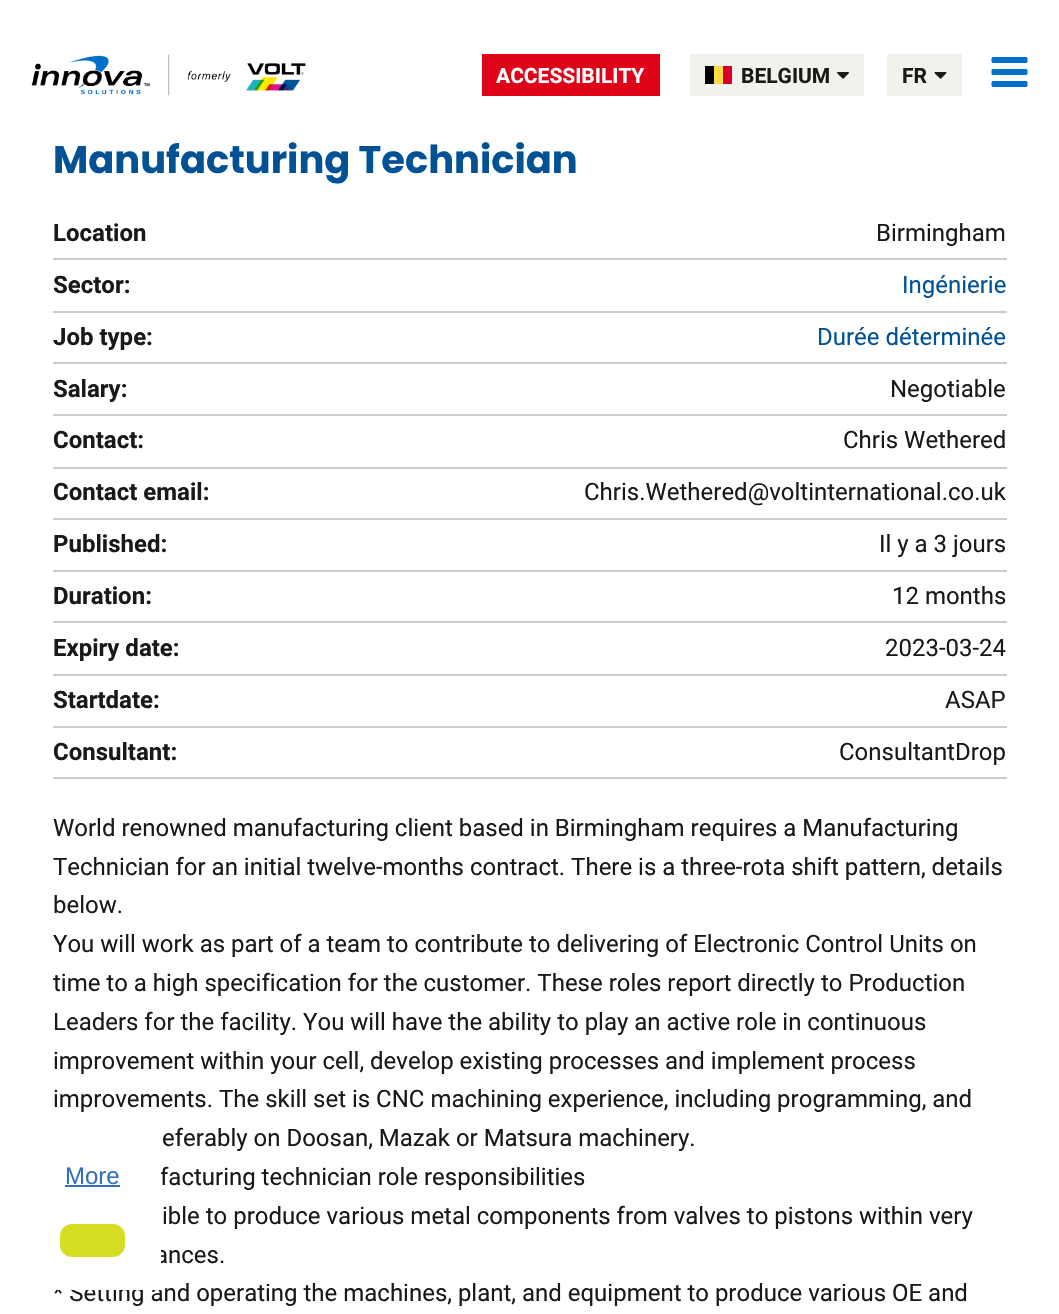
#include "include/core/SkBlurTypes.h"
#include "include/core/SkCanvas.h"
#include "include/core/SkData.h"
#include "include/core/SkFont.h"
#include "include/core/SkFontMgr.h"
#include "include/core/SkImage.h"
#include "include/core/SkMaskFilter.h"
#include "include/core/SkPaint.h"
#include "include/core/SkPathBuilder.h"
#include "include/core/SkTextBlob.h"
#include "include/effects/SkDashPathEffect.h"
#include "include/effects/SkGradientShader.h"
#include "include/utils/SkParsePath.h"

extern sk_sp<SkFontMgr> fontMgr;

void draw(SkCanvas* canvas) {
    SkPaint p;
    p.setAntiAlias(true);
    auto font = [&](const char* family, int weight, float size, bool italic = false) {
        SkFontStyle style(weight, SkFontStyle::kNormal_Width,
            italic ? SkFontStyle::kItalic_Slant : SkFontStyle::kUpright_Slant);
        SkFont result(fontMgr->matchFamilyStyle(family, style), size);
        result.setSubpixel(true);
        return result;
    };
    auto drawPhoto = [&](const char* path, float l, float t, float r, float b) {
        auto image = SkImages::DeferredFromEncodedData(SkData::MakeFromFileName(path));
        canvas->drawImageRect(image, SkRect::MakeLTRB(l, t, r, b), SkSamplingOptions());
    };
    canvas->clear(0xFFFFFFFF);
    drawPhoto("media/1.png", 31, 54, 306, 96);
    p.setColor(0xFFDE0318);
    canvas->drawRect(SkRect::MakeLTRB(482, 54, 660, 96), p);
    auto font1 = font("Roboto", 700, 21);
    p.setColor(0xFFFFFFFF);
    canvas->drawString("ACCESSIBILITY", 496, 83, font1, p);
    {
        const struct { float l, t, r, b; SkColor color; } items[] = {
            {690, 54, 864, 96, 0xFFF1F2EB},
            {714, 66, 723, 84, 0xFFFFDA44},
            {705, 66, 714, 84, 0xFF000000},
            {723, 66, 732, 84, 0xFFD80027},
        };
        for (auto [l, t, r, b, color] : items) {
            p.setColor(color);
            canvas->drawRect(SkRect::MakeLTRB(l, t, r, b), p);
        }
    }
    p.setColor(0xFF1A1919);
    canvas->drawString("BELGIUM", 741, 83, font1, p);
    drawPhoto("media/2.png", 837, 72, 849, 79);
    p.setColor(0xFFF1F2EB);
    canvas->drawRect(SkRect::MakeLTRB(887, 54, 962, 96), p);
    p.setColor(0xFF1A1919);
    canvas->drawString("FR", 902, 83, font1, p);
    drawPhoto("media/3.png", 934, 72, 947, 79);
    drawPhoto("media/4.png", 991, 57, 1028, 87);
    auto font2 = font("Poppins", 700, 38.4f);
    p.setColor(0xFF005295);
    canvas->drawString("Manufacturing Technician", 53, 173, font2, p);
    p.setColor(0xFFCCCCCC);
    canvas->drawRect(SkRect::MakeLTRB(53, 258, 1007, 260), p);
    auto font3 = font("Roboto", 700, 24);
    p.setColor(0xFF1A1919);
    canvas->drawString("Location", 53, 241, font3, p);
    auto font4 = font("Roboto", 400, 24);
    canvas->drawString("Birmingham", 876, 241, font4, p);
    p.setColor(0xFFCCCCCC);
    canvas->drawRect(SkRect::MakeLTRB(53, 311, 1007, 313), p);
    p.setColor(0xFF1A1919);
    canvas->drawString("Sector:", 53, 293, font3, p);
    p.setColor(0xFF005295);
    canvas->drawString("Ingénierie", 902, 293, font4, p);
    p.setColor(0xFFCCCCCC);
    canvas->drawRect(SkRect::MakeLTRB(53, 362, 1007, 364), p);
    p.setColor(0xFF1A1919);
    canvas->drawString("Job type:", 53, 345, font3, p);
    p.setColor(0xFF005295);
    canvas->drawString("Durée déterminée", 817, 345, font4, p);
    p.setColor(0xFFCCCCCC);
    canvas->drawRect(SkRect::MakeLTRB(53, 414, 1007, 416), p);
    p.setColor(0xFF1A1919);
    canvas->drawString("Salary:", 53, 397, font3, p);
    canvas->drawString("Negotiable", 890, 397, font4, p);
    p.setColor(0xFFCCCCCC);
    canvas->drawRect(SkRect::MakeLTRB(53, 467, 1007, 469), p);
    p.setColor(0xFF1A1919);
    canvas->drawString("Contact:", 53, 448, font3, p);
    canvas->drawString("Chris Wethered", 843, 448, font4, p);
    p.setColor(0xFFCCCCCC);
    canvas->drawRect(SkRect::MakeLTRB(53, 518, 1007, 520), p);
    p.setColor(0xFF1A1919);
    canvas->drawString("Contact email:", 53, 500, font3, p);
    canvas->drawString("Chris.Wethered@voltinternational.co.uk", 584, 500, font4, p);
    p.setColor(0xFFCCCCCC);
    canvas->drawRect(SkRect::MakeLTRB(53, 570, 1007, 572), p);
    p.setColor(0xFF1A1919);
    canvas->drawString("Published:", 53, 552, font3, p);
    canvas->drawString("Il y a 3 jours", 879, 552, font4, p);
    p.setColor(0xFFCCCCCC);
    canvas->drawRect(SkRect::MakeLTRB(53, 621, 1007, 623), p);
    p.setColor(0xFF1A1919);
    canvas->drawString("Duration:", 53, 604, font3, p);
    canvas->drawString("12 months", 892, 604, font4, p);
    p.setColor(0xFFCCCCCC);
    canvas->drawRect(SkRect::MakeLTRB(53, 674, 1007, 676), p);
    p.setColor(0xFF1A1919);
    canvas->drawString("Expiry date:", 53, 656, font3, p);
    canvas->drawString("2023-03-24", 885, 656, font4, p);
    p.setColor(0xFFCCCCCC);
    canvas->drawRect(SkRect::MakeLTRB(53, 726, 1007, 728), p);
    p.setColor(0xFF1A1919);
    canvas->drawString("Startdate:", 53, 708, font3, p);
    canvas->drawString("ASAP", 945, 708, font4, p);
    p.setColor(0xFFCCCCCC);
    canvas->drawRect(SkRect::MakeLTRB(53, 777, 1007, 779), p);
    p.setColor(0xFF1A1919);
    canvas->drawString("Consultant:", 53, 760, font3, p);
    {
        const struct { const char* s; float x, y; } items[] = {
            {"ConsultantDrop", 839, 760},
            {"World renowned manufacturing client based in Birmingham requires a Manufacturing", 53, 836},
            {"Technician for an initial twelve-months contract. There is a three-rota shift pattern, details", 53, 875},
            {"below.", 53, 913},
            {"You will work as part of a team to contribute to delivering of Electronic Control Units on", 53, 952},
            {"time to a high specification for the customer. These roles report directly to Production", 53, 991},
            {"Leaders for the facility. You will have the ability to play an active role in continuous", 53, 1030},
            {"improvement within your cell, develop existing processes and implement process", 53, 1069},
            {"improvements. The skill set is CNC machining experience, including programming, and", 53, 1107},
            {"eferably on Doosan, Mazak or Matsura machinery.", 162, 1146},
            {"facturing technician role responsibilities", 160, 1185},
            {"ible to produce various metal components from valves to pistons within very", 162, 1224},
            {"ances.", 155, 1263},
            {"* Setting and operating the machines, plant, and equipment to produce various OE and", 53, 1301},
        };
        for (auto [s, x, y] : items) {
            canvas->drawString(s, x, y, font4, p);
        }
    }
    p.setColor(0xFFFFFFFF);
    canvas->drawRect(SkRect::MakeLTRB(53, 1172, 161, 1290), p);
    auto font5 = font("Liberation Sans", 400, 24);
    p.setColor(0xFF336DC2);
    canvas->drawString("More", 65, 1184, font5, p);
    canvas->drawRect(SkRect::MakeLTRB(65, 1185, 120, 1187), p);
    p.setColor(0xFFD6DE24);
    canvas->drawRoundRect(SkRect::MakeLTRB(61, 1225, 124, 1256), 11, 11, p);
    p.setStyle(SkPaint::kStroke_Style);
    p.setStrokeWidth(2);
    canvas->drawRoundRect(SkRect::MakeLTRB(61, 1225, 124, 1256), 11, 11, p);
}
